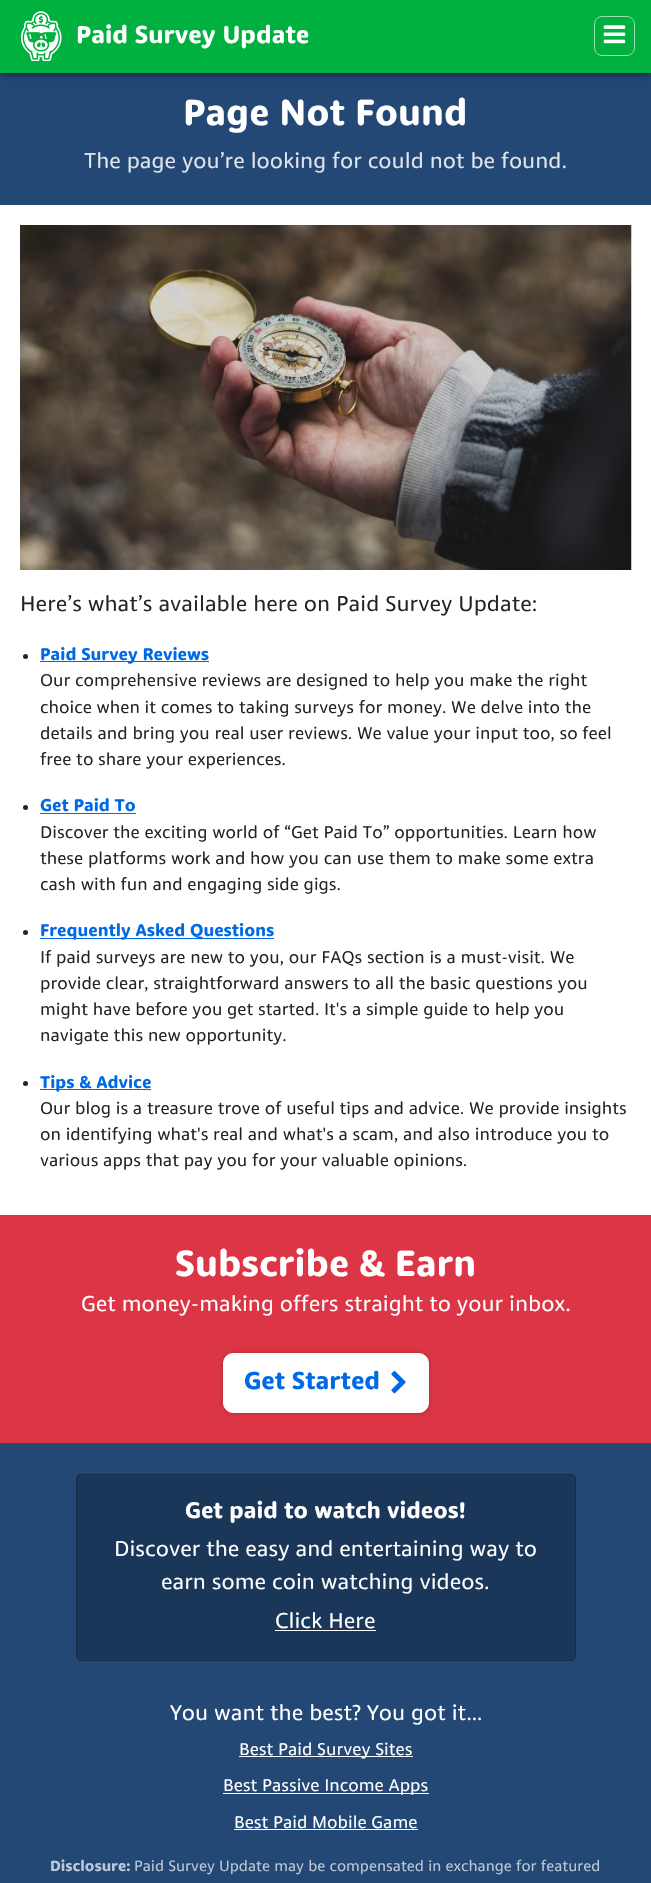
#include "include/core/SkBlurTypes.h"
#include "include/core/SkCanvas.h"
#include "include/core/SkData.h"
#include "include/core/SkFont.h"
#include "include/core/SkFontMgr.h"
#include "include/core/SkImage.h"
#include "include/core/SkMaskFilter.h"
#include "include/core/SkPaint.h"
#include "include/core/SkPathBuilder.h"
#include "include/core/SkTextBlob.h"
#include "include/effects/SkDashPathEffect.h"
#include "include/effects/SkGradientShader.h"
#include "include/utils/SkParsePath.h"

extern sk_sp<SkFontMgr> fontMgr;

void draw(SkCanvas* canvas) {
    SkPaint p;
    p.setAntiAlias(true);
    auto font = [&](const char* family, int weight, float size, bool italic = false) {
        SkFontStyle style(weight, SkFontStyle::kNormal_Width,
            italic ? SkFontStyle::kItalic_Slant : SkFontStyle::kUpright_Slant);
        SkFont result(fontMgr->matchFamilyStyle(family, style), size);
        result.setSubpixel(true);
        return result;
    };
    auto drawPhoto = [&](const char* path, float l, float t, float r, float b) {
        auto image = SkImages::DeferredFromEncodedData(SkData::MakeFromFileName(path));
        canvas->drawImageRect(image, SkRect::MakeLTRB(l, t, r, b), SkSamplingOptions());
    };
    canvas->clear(0xFFFFFFFF);
    p.setColor(0xFF234875);
    canvas->drawRect(SkRect::MakeLTRB(0, 73, 651, 205), p);
    p.setColor(0xA8000000);
    p.setMaskFilter(SkMaskFilter::MakeBlur(kNormal_SkBlurStyle, 4.5f));
    canvas->drawRect(SkRect::MakeLTRB(0, 0, 651, 73), p);
    p.setMaskFilter(nullptr);
    p.setColor(0xFF00B13F);
    canvas->drawRect(SkRect::MakeLTRB(0, 0, 651, 73), p);
    drawPhoto("media/1.png", 21, 11, 62, 61);
    auto font1 = font("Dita", 700, 25);
    p.setColor(0xFFFFFFFF);
    canvas->drawString("Paid Survey Update", 76, 43, font1, p);
    p.setStyle(SkPaint::kStroke_Style);
    p.setStrokeWidth(1);
    p.setColor(0xFF99E0B2);
    canvas->drawRoundRect(SkRect::MakeLTRB(594.5f, 16.5f, 634.5f, 55.5f), 7.5f, 7.5f, p);
    drawPhoto("media/2.png", 603, 25, 626, 44);
    auto font2 = font("Dita", 700, 37.25f);
    p.setStyle(SkPaint::kFill_Style);
    p.setColor(0xFFFFFFFF);
    canvas->drawString("Page Not Found", 183, 125, font2, p);
    auto font3 = font("Dita", 400, 22);
    p.setColor(0xFFDEE4EA);
    canvas->drawString("The page you’re looking for could not be found.", 84, 168, font3, p);
    drawPhoto("media/3.png", 20, 225, 632, 570);
    p.setColor(0xFF212529);
    canvas->drawString("Here’s what’s available here on Paid Survey Update:", 20, 611, font3, p);
    canvas->drawCircle(25.5f, 656.5f, 2.5f, p);
    p.setColor(0xFF006AE6);
    canvas->drawRect(SkRect::MakeLTRB(40, 661, 209, 662), p);
    auto font4 = font("Dita", 700, 17.5f);
    canvas->drawString("Paid Survey Reviews", 40, 660, font4, p);
    auto font5 = font("Dita", 400, 17.5f);
    p.setColor(0xFF212529);
    {
        const struct { const char* s; float x, y; } items[] = {
            {"Our comprehensive reviews are designed to help you make the right", 40, 686},
            {"choice when it comes to taking surveys for money. We delve into the", 40, 713},
            {"details and bring you real user reviews. We value your input too, so feel", 40, 739},
            {"free to share your experiences.", 40, 765},
        };
        for (auto [s, x, y] : items) {
            canvas->drawString(s, x, y, font5, p);
        }
    }
    canvas->drawCircle(25.5f, 807.5f, 2.5f, p);
    p.setColor(0xFF006AE6);
    canvas->drawString("Get Paid To", 40, 811, font4, p);
    canvas->drawRect(SkRect::MakeLTRB(40, 813, 136, 814), p);
    p.setColor(0xFF212529);
    {
        const struct { const char* s; float x, y; } items[] = {
            {"Discover the exciting world of “Get Paid To” opportunities. Learn how", 40, 838},
            {"these platforms work and how you can use them to make some extra", 40, 864},
            {"cash with fun and engaging side gigs.", 40, 890},
        };
        for (auto [s, x, y] : items) {
            canvas->drawString(s, x, y, font5, p);
        }
    }
    canvas->drawCircle(25.5f, 932.5f, 2.5f, p);
    p.setColor(0xFF006AE6);
    canvas->drawRect(SkRect::MakeLTRB(40, 938, 274, 939), p);
    canvas->drawString("Frequently Asked Questions", 40, 936, font4, p);
    p.setColor(0xFF212529);
    {
        const struct { const char* s; float x, y; } items[] = {
            {"If paid surveys are new to you, our FAQs section is a must-visit. We", 40, 963},
            {"provide clear, straightforward answers to all the basic questions you", 40, 989},
            {"might have before you get started. It's a simple guide to help you", 40, 1015},
            {"navigate this new opportunity.", 40, 1041},
        };
        for (auto [s, x, y] : items) {
            canvas->drawString(s, x, y, font5, p);
        }
    }
    canvas->drawCircle(25.5f, 1083.5f, 2.5f, p);
    p.setColor(0xFF006AE6);
    canvas->drawRect(SkRect::MakeLTRB(40, 1089, 151, 1090), p);
    canvas->drawString("Tips & Advice", 40, 1088, font4, p);
    p.setColor(0xFF212529);
    {
        const struct { const char* s; float x, y; } items[] = {
            {"Our blog is a treasure trove of useful tips and advice. We provide insights", 40, 1114},
            {"on identifying what's real and what's a scam, and also introduce you to", 40, 1140},
            {"various apps that pay you for your valuable opinions.", 40, 1166},
        };
        for (auto [s, x, y] : items) {
            canvas->drawString(s, x, y, font5, p);
        }
    }
    p.setColor(0xFFDC3545);
    canvas->drawRect(SkRect::MakeLTRB(0, 1215, 651, 1443), p);
    p.setColor(0xFFFFFFFF);
    canvas->drawString("Subscribe & Earn", 175, 1276, font2, p);
    canvas->drawString("Get money-making offers straight to your inbox.", 81, 1311, font3, p);
    p.setColor(0x33000000);
    p.setMaskFilter(SkMaskFilter::MakeBlur(kNormal_SkBlurStyle, 2));
    canvas->drawRoundRect(SkRect::MakeLTRB(223, 1353, 429, 1413), 10, 10, p);
    p.setMaskFilter(nullptr);
    p.setColor(0xFFFFFFFF);
    canvas->drawRoundRect(SkRect::MakeLTRB(223.5f, 1353.5f, 428.5f, 1412.5f), 9.5f, 9.5f, p);
    p.setStyle(SkPaint::kStroke_Style);
    canvas->drawRoundRect(SkRect::MakeLTRB(223.5f, 1353.5f, 428.5f, 1412.5f), 9.5f, 9.5f, p);
    p.setStyle(SkPaint::kFill_Style);
    p.setColor(0xFF006AE6);
    canvas->drawString("Get Started", 244, 1389, font1, p);
    drawPhoto("media/4.png", 391, 1370, 406, 1394);
    p.setColor(0xFF234875);
    canvas->drawRect(SkRect::MakeLTRB(0, 1443, 651, 1883), p);
    p.setColor(0xFF1A3658);
    canvas->drawRoundRect(SkRect::MakeLTRB(76, 1474, 576, 1661), 5, 5, p);
    p.setStyle(SkPaint::kStroke_Style);
    p.setColor(0x33000000);
    canvas->drawRoundRect(SkRect::MakeLTRB(76.5f, 1474.5f, 575.5f, 1660.5f), 4.5f, 4.5f, p);
    auto font6 = font("Dita", 700, 23.1f);
    p.setStyle(SkPaint::kFill_Style);
    p.setColor(0xFFFFFFFF);
    canvas->drawString("Get paid to watch videos!", 185, 1518, font6, p);
    {
        const struct { const char* s; float x, y; } items[] = {
            {"Discover the easy and entertaining way to", 114, 1556},
            {"earn some coin watching videos.", 161, 1589},
            {"Click Here", 275, 1628},
        };
        for (auto [s, x, y] : items) {
            canvas->drawString(s, x, y, font3, p);
        }
    }
    canvas->drawRect(SkRect::MakeLTRB(275, 1630, 376, 1631), p);
    canvas->drawString("You want the best? You got it…", 170, 1720, font3, p);
    canvas->drawRect(SkRect::MakeLTRB(239, 1756, 413, 1757), p);
    canvas->drawString("Best Paid Survey Sites", 239, 1755, font5, p);
    canvas->drawRect(SkRect::MakeLTRB(223, 1793, 429, 1794), p);
    canvas->drawString("Best Passive Income Apps", 223, 1791, font5, p);
    canvas->drawString("Best Paid Mobile Game", 234, 1828, font5, p);
    canvas->drawRect(SkRect::MakeLTRB(234, 1829, 418, 1830), p);
    auto font7 = font("Dita", 700, 15.3f);
    p.setColor(0xFFBDC8D6);
    canvas->drawString("Disclosure:", 50, 1871, font7, p);
    auto font8 = font("Dita", 400, 15.3f);
    canvas->drawString("Paid Survey Update may be compensated in exchange for featured", 134, 1871, font8, p);
}
